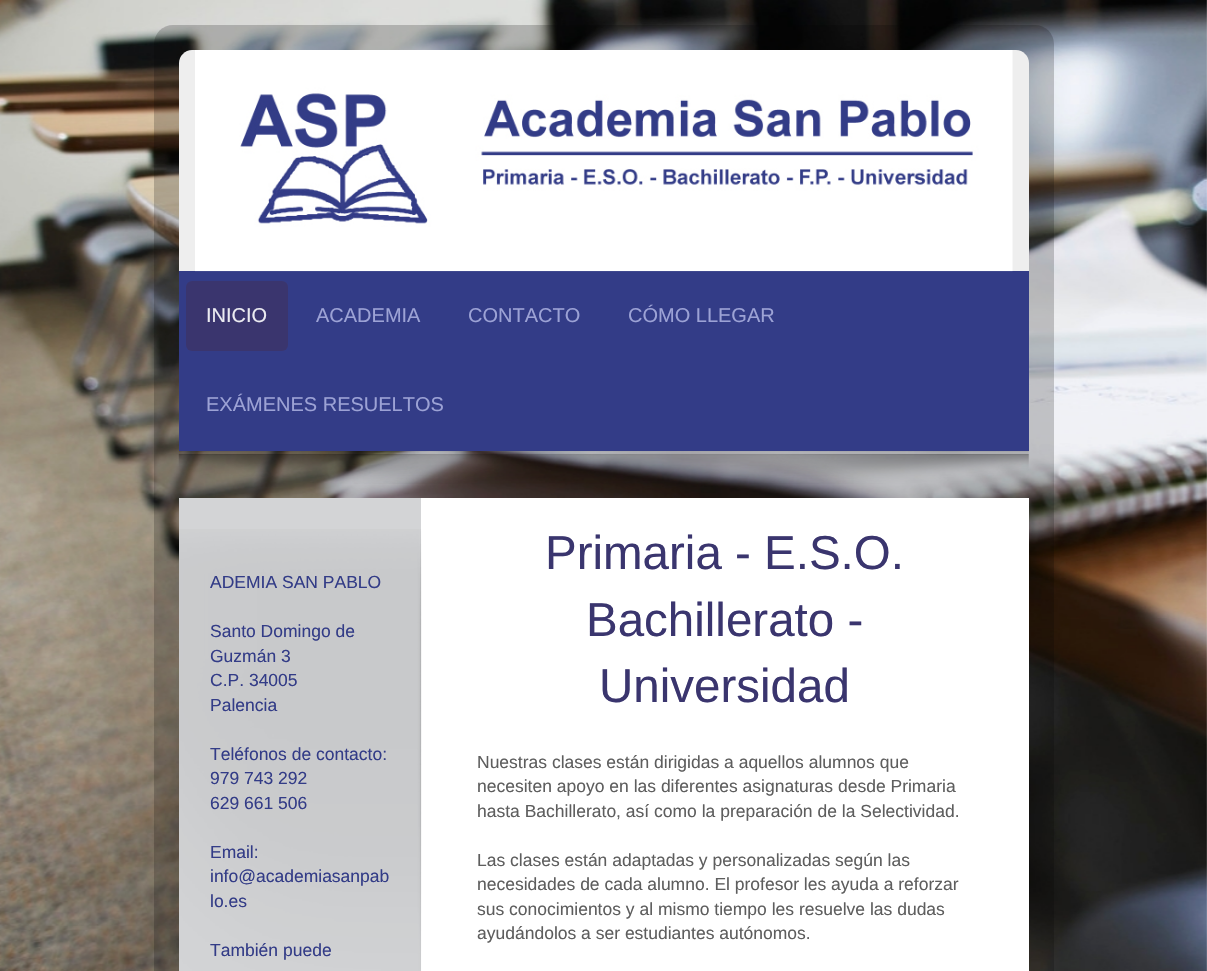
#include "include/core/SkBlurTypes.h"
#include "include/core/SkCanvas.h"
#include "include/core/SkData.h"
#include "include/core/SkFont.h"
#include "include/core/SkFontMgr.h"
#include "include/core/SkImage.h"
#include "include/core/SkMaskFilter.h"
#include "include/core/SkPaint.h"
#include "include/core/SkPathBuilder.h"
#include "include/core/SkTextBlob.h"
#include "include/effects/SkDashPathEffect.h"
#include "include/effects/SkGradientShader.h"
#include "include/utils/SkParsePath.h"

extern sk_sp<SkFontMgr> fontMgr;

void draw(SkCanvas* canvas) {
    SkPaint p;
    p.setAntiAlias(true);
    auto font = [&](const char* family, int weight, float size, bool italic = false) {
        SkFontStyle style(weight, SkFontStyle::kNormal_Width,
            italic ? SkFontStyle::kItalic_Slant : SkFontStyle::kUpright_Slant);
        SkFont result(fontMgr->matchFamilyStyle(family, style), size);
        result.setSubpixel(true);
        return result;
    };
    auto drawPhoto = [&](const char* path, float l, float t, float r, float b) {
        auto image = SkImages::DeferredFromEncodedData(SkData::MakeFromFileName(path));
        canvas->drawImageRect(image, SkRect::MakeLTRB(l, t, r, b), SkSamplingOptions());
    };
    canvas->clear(0xFFFFFFFF);
    drawPhoto("media/1.png", 0, 0, 1207, 971);
    p.setColor(0x33000000);
    canvas->drawRoundRect(SkRect::MakeLTRB(154, 25, 1054, 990), 19, 19, p);
    p.setColor(0xFFEEEEEE);
    canvas->drawPath(SkPathBuilder().moveTo(192, 50).lineTo(1016, 50).cubicTo(1023, 50, 1029, 56, 1029, 63).lineTo(1029, 271).lineTo(179, 271).lineTo(179, 63).cubicTo(179, 56, 185, 50, 192, 50).close().detach(), p);
    p.setColor(0xFF333C87);
    canvas->drawRect(SkRect::MakeLTRB(179, 271, 1029, 451), p);
    drawPhoto("media/2.png", 195, 50, 1013, 272);
    drawPhoto("media/3.png", 178, 451, 1029, 484);
    p.setColor(0xFF3A356E);
    canvas->drawRoundRect(SkRect::MakeLTRB(186, 281, 288, 351), 6, 6, p);
    auto font1 = font("Liberation Sans", 400, 20);
    p.setColor(0xFFEBEBF1);
    canvas->drawString("INICIO", 206, 322, font1, p);
    p.setColor(0xFF9CA2D5);
    {
        const struct { const char* s; float x, y; } items[] = {
            {"ACADEMIA", 316, 322},
            {"CONTACTO", 468, 322},
            {"CÓMO LLEGAR", 628, 322},
            {"EXÁMENES RESUELTOS", 206, 411},
        };
        for (auto [s, x, y] : items) {
            canvas->drawString(s, x, y, font1, p);
        }
    }
    p.setColor(0xFFFFFFFF);
    canvas->drawRect(SkRect::MakeLTRB(421, 498, 1029, 971), p);
    p.setColor(0xFFD3D4D6);
    canvas->drawRect(SkRect::MakeLTRB(179, 498, 421, 971), p);
    auto font2 = font("Liberation Sans", 400, 47.5f);
    p.setColor(0xFF3A356E);
    {
        const struct { const char* s; float x, y; } items[] = {
            {"Primaria - E.S.O.", 545, 569},
            {"Bachillerato -", 586, 636},
            {"Universidad", 599, 702},
        };
        for (auto [s, x, y] : items) {
            canvas->drawString(s, x, y, font2, p);
        }
    }
    auto font3 = font("Liberation Sans", 400, 17.5f);
    p.setColor(0xFF5E5E5E);
    {
        const struct { const char* s; float x, y; } items[] = {
            {"Nuestras clases están dirigidas a aquellos alumnos que", 477, 768},
            {"necesiten apoyo en las diferentes asignaturas desde Primaria", 477, 792},
            {"hasta Bachillerato, así como la preparación de la Selectividad.", 477, 817},
            {"Las clases están adaptadas y personalizadas según las", 477, 866},
            {"necesidades de cada alumno. El profesor les ayuda a reforzar", 477, 890},
            {"sus conocimientos y al mismo tiempo les resuelve las dudas", 477, 915},
            {"ayudándolos a ser estudiantes autónomos.", 477, 939},
        };
        for (auto [s, x, y] : items) {
            canvas->drawString(s, x, y, font3, p);
        }
    }
    drawPhoto("media/4.png", 179, 529, 422, 971);
    p.setColor(0xFF333C87);
    {
        const struct { const char* s; float x, y; } items[] = {
            {"ADEMIA SAN PABLO", 210, 588},
            {"Santo Domingo de", 210, 637},
            {"Guzmán 3", 210, 662},
            {"C.P. 34005", 210, 686},
            {"Palencia", 210, 711},
            {"Teléfonos de contacto:", 210, 760},
            {"979 743 292", 210, 784},
            {"629 661 506", 210, 809},
            {"Email:", 210, 858},
            {"info@academiasanpab", 210, 882},
            {"lo.es", 210, 907},
            {"También puede", 210, 956},
        };
        for (auto [s, x, y] : items) {
            canvas->drawString(s, x, y, font3, p);
        }
    }
}
